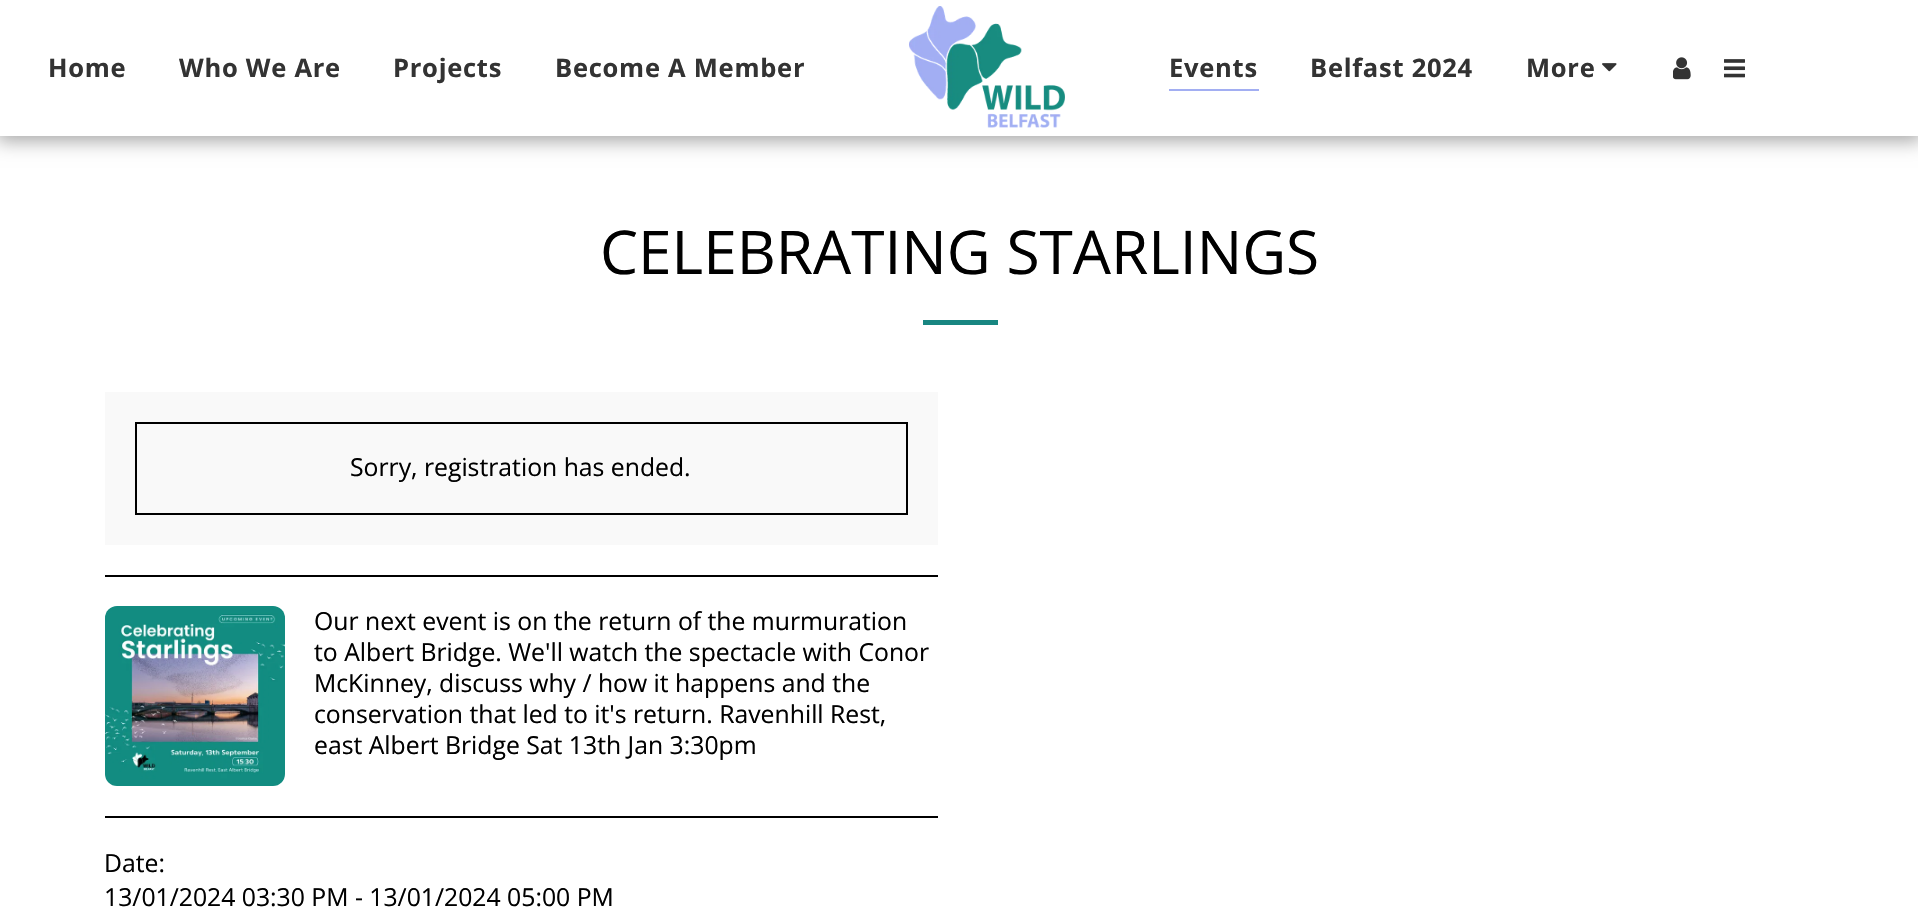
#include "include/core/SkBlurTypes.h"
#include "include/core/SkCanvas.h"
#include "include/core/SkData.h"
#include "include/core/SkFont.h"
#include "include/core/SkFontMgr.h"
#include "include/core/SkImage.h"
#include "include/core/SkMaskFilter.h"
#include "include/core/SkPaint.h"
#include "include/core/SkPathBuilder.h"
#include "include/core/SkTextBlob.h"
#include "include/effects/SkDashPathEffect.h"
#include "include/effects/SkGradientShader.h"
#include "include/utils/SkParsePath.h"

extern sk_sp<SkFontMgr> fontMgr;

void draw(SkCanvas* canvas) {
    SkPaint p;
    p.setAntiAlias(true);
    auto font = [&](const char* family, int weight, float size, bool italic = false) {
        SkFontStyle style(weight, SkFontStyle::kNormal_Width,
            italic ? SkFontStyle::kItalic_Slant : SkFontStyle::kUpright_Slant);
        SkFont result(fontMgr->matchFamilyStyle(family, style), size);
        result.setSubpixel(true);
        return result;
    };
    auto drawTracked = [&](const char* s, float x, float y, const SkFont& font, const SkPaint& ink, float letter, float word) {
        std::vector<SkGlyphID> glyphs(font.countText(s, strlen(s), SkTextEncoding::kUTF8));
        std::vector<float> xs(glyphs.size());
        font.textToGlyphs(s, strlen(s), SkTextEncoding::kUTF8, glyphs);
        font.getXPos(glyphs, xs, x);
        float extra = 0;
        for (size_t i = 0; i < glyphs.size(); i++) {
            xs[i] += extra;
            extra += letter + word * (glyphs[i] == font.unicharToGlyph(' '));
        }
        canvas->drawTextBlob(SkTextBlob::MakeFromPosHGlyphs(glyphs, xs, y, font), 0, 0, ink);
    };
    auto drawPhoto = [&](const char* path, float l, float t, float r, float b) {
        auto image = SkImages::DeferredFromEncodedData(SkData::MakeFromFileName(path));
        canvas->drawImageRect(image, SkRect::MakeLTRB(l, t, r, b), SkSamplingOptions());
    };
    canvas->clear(0xFFFFFFFF);
    p.setColor(0x59000000);
    p.setMaskFilter(SkMaskFilter::MakeBlur(kNormal_SkBlurStyle, 9));
    canvas->drawRect(SkRect::MakeLTRB(-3, 0, 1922, 141), p);
    p.setMaskFilter(nullptr);
    p.setColor(0xFFFFFFFF);
    canvas->drawRect(SkRect::MakeLTRB(0, 0, 1918, 136), p);
    auto font1 = font("Open Sans", 700, 25.5f);
    p.setColor(0xFF333333);
    {
        const struct { const char* s; float x, y; } items[] = {
            {"Home", 48, 77},
            {"Who We Are", 179, 77},
            {"Projects", 393, 77},
            {"Become A Member", 555, 77},
        };
        for (auto [s, x, y] : items) {
            drawTracked(s, x, y, font1, p, 0.75f, 0);
        }
    }
    drawPhoto("media/1.png", 909, 6, 1065, 128);
    drawTracked("Events", 1169, 77, font1, p, 0.75f, 0);
    p.setColor(0xFFA2AEF2);
    canvas->drawRect(SkRect::MakeLTRB(1169, 89, 1259, 91), p);
    p.setColor(0xFF333333);
    drawTracked("Belfast 2024", 1310, 77, font1, p, 0.75f, 0);
    drawTracked("More", 1526, 77, font1, p, 0.75f, 0);
    drawPhoto("media/2.png", 1602, 63, 1617, 72);
    drawPhoto("media/3.png", 1673, 57, 1691, 80);
    drawPhoto("media/4.png", 1724, 59, 1745, 78);
    auto font2 = font("Open Sans", 400, 60.4f);
    p.setColor(0xFF000000);
    canvas->drawString("CELEBRATING STARLINGS", 600, 274, font2, p);
    p.setColor(0xFF188681);
    canvas->drawRect(SkRect::MakeLTRB(923, 320, 998, 325), p);
    p.setColor(0xFFF9F9F9);
    canvas->drawRect(SkRect::MakeLTRB(105, 392, 938, 545), p);
    p.setStyle(SkPaint::kStroke_Style);
    p.setStrokeWidth(2);
    p.setColor(0xFF000000);
    canvas->drawRect(SkRect::MakeLTRB(136, 423, 907, 514), p);
    auto font3 = font("Open Sans", 400, 24.75f);
    p.setStyle(SkPaint::kFill_Style);
    canvas->drawString("Sorry, registration has ended.", 350, 476, font3, p);
    canvas->drawRect(SkRect::MakeLTRB(105, 575, 938, 577), p);
    drawPhoto("media/5.png", 105, 606, 285, 786);
    {
        const struct { const char* s; float x, y; } items[] = {
            {"Our next event is on the return of the murmuration", 314, 630},
            {"to Albert Bridge. We'll watch the spectacle with Conor", 314, 661},
            {"McKinney, discuss why / how it happens and the", 314, 692},
            {"conservation that led to it's return. Ravenhill Rest,", 314, 723},
            {"east Albert Bridge Sat 13th Jan 3:30pm", 314, 754},
        };
        for (auto [s, x, y] : items) {
            canvas->drawString(s, x, y, font3, p);
        }
    }
    canvas->drawRect(SkRect::MakeLTRB(105, 816, 938, 818), p);
    canvas->drawString("Date:", 104, 872, font3, p);
    canvas->drawString("13/01/2024 03:30 PM - 13/01/2024 05:00 PM", 104, 906, font3, p);
}
